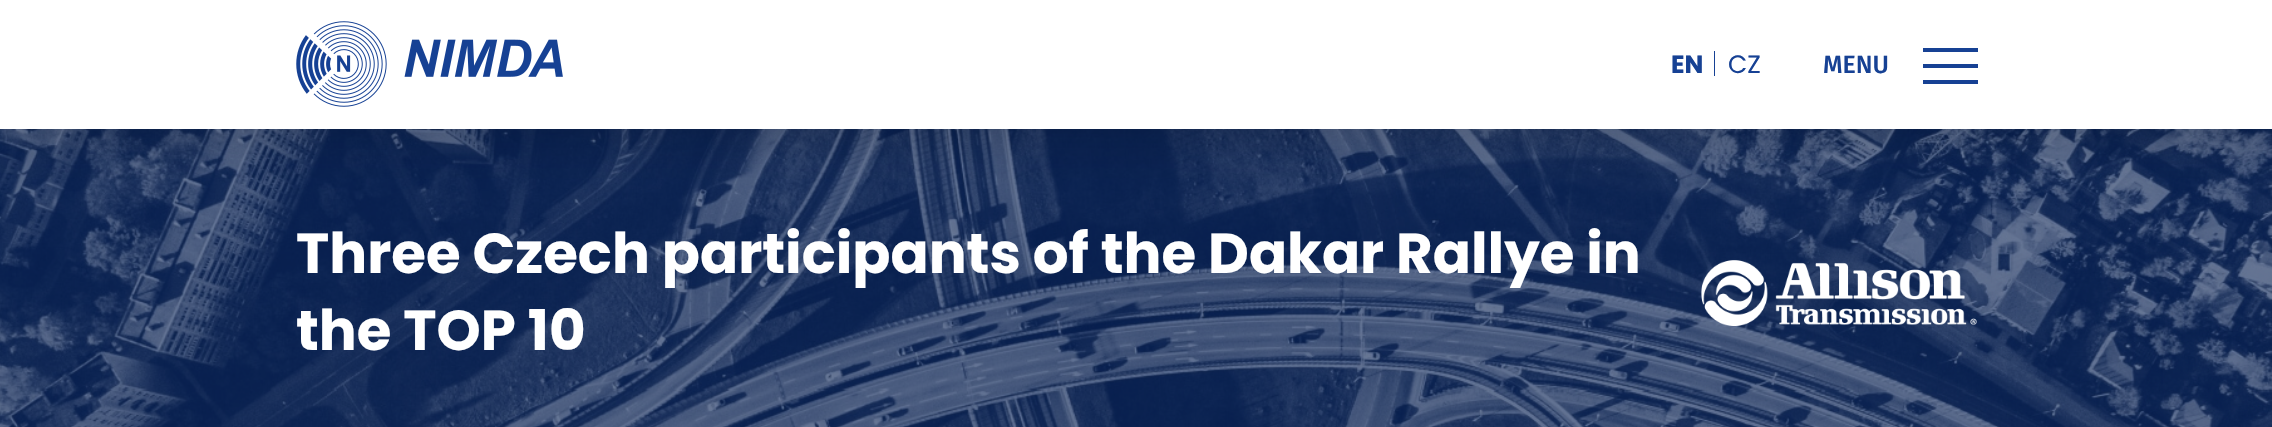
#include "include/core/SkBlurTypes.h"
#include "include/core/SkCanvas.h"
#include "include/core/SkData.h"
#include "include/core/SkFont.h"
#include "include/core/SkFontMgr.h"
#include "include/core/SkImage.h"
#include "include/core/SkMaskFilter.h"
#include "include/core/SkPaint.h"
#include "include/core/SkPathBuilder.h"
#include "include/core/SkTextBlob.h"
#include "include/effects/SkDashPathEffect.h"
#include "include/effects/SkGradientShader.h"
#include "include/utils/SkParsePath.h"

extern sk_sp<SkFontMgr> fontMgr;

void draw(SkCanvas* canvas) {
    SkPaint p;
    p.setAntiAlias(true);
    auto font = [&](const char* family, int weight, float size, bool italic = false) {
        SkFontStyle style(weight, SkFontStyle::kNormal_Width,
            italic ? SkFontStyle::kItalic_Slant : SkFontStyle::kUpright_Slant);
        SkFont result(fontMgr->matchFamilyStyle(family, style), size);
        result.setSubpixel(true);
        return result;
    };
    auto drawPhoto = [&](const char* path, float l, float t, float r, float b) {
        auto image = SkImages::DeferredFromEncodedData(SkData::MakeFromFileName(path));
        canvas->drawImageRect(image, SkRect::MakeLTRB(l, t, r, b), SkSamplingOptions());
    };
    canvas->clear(0xFFFFFFFF);
    drawPhoto("media/2.png", 0, 129, 2272, 427);
    p.setColor(0x29000000);
    p.setMaskFilter(SkMaskFilter::MakeBlur(kNormal_SkBlurStyle, 25));
    canvas->drawRect(SkRect::MakeLTRB(0, 3, 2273, 133), p);
    p.setMaskFilter(nullptr);
    p.setColor(0xFFFFFFFF);
    canvas->drawRect(SkRect::MakeLTRB(0, 0, 2272, 129), p);
    drawPhoto("media/1.png", 296, 21, 563, 107);
    auto font1 = font("Poppins", 700, 25);
    p.setColor(0xFF164194);
    canvas->drawString("EN", 1671, 73, font1, p);
    canvas->drawRect(SkRect::MakeLTRB(1714, 51, 1715, 76), p);
    auto font2 = font("Poppins", 400, 25);
    canvas->drawString("CZ", 1728, 73, font2, p);
    auto font3 = font("Fira Sans", 500, 25);
    canvas->drawString("MENU", 1823, 73, font3, p);
    {
        const struct { float l, t, r, b; SkColor color; } items[] = {
            {1923, 64, 1978, 68, 0xFF164194},
            {1923, 48, 1978, 52, 0xFF164194},
            {1923, 80, 1978, 84, 0xFF164194},
        };
        for (auto [l, t, r, b, color] : items) {
            p.setColor(color);
            canvas->drawRect(SkRect::MakeLTRB(l, t, r, b), p);
        }
    }
    auto font4 = font("Poppins", 700, 56.25f);
    p.setColor(0xFFFFFFFF);
    canvas->drawString("Three Czech participants of the Dakar Rallye in", 296, 273, font4, p);
    canvas->drawString("the TOP 10", 296, 350, font4, p);
    drawPhoto("media/3.png", 1701, 260, 1977, 326);
}
